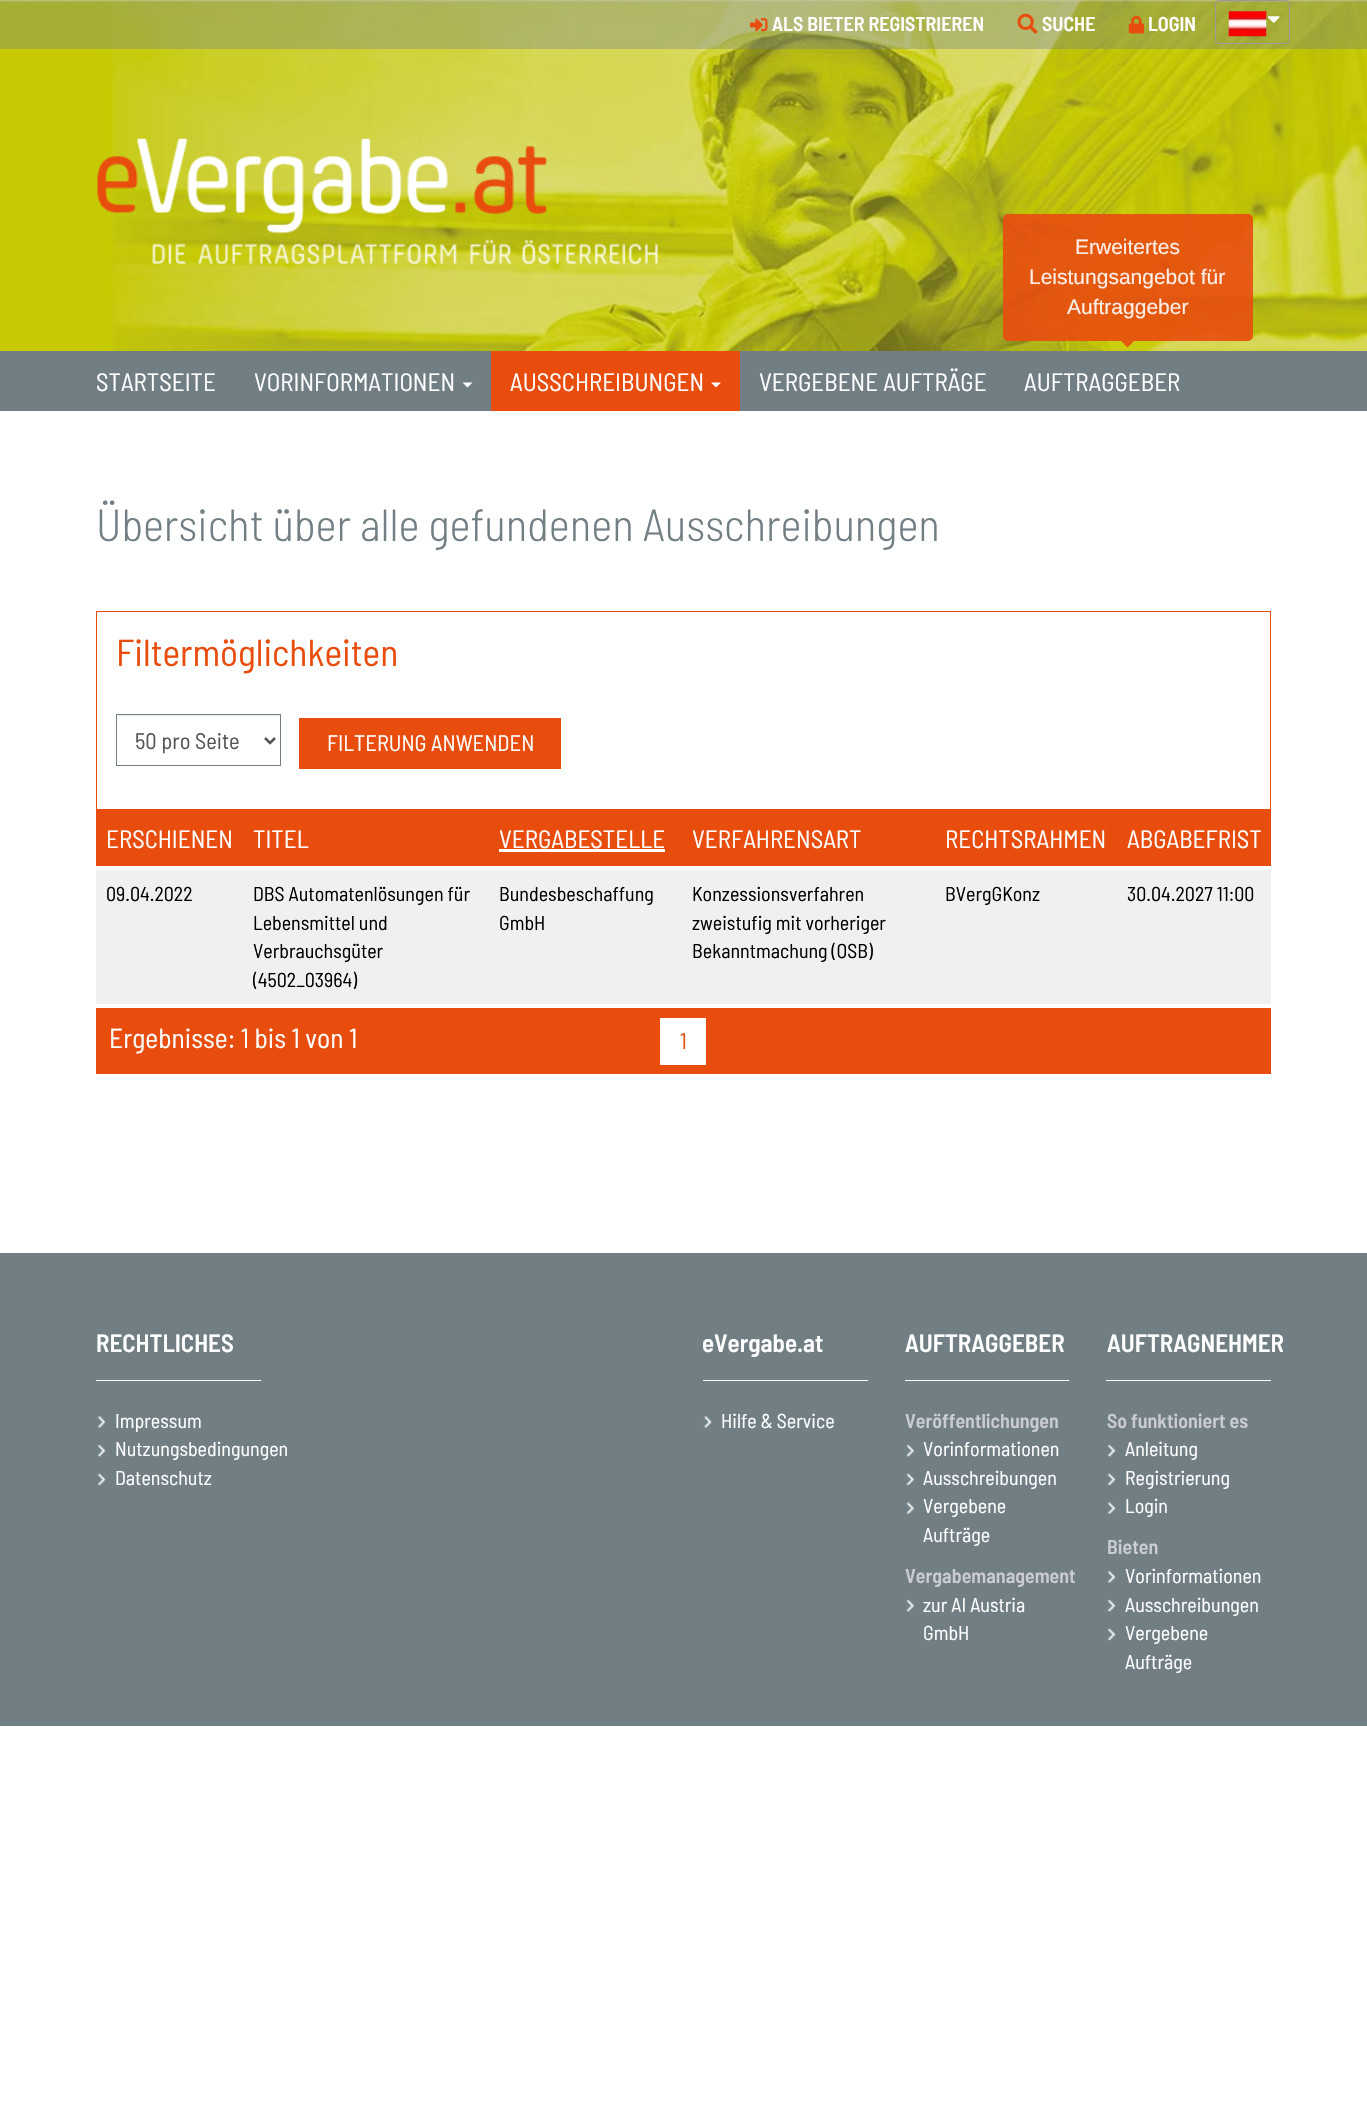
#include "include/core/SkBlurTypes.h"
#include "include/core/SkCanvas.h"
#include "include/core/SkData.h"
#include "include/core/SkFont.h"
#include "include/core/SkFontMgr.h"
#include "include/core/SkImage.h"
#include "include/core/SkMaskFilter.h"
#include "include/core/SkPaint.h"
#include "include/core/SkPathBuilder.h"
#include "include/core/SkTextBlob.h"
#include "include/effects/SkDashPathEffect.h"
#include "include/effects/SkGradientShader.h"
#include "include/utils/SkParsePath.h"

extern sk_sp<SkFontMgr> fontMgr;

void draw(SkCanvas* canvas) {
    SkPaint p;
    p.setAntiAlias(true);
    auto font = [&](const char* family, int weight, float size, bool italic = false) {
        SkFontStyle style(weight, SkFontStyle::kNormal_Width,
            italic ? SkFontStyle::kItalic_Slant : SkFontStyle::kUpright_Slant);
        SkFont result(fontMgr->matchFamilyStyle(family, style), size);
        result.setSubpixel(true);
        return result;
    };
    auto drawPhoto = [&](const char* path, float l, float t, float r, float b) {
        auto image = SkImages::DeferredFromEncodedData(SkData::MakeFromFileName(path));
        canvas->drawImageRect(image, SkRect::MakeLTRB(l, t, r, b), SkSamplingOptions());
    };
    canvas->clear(0xFFFFFFFF);
    drawPhoto("media/1.png", 0, 0, 1367, 351);
    p.setColor(0x5E728085);
    canvas->drawRect(SkRect::MakeLTRB(0, 0, 1367, 49), p);
    drawPhoto("media/2.png", 750, 18, 768, 32);
    auto font1 = font("Barlow Semi Condensed", 600, 20);
    p.setColor(0xFFFFFFFF);
    canvas->drawString("ALS BIETER REGISTRIEREN", 772, 31, font1, p);
    drawPhoto("media/3.png", 1017, 13, 1038, 34);
    canvas->drawString("SUCHE", 1042, 31, font1, p);
    drawPhoto("media/4.png", 1128, 15, 1145, 34);
    canvas->drawString("LOGIN", 1148, 31, font1, p);
    p.setStyle(SkPaint::kStroke_Style);
    p.setStrokeWidth(1);
    p.setColor(0xFF999999);
    canvas->drawRoundRect(SkRect::MakeLTRB(1215.5f, 0.5f, 1289.5f, 43.5f), 3.5f, 3.5f, p);
    drawPhoto("media/5.png", 1228, 11, 1267, 37);
    drawPhoto("media/6.png", 1268, 16, 1280, 23);
    drawPhoto("media/7.png", 97, 138, 658, 264);
    p.setStyle(SkPaint::kFill_Style);
    p.setColor(0xFF717F85);
    canvas->drawRect(SkRect::MakeLTRB(0, 351, 1367, 411), p);
    auto font2 = font("Barlow Semi Condensed", 400, 25);
    p.setColor(0xFFFFFFFF);
    canvas->drawString("STARTSEITE", 96, 391, font2, p);
    canvas->drawString("VORINFORMATIONEN", 254, 391, font2, p);
    canvas->drawPath(SkPathBuilder().moveTo(462.5f, 382.5f).lineTo(472.5f, 382.5f).lineTo(467.5f, 387.5f).close().detach(), p);
    p.setColor(0xFFE84D0E);
    canvas->drawRect(SkRect::MakeLTRB(491, 351, 740, 411), p);
    p.setColor(0xFFFFFFFF);
    canvas->drawString("AUSSCHREIBUNGEN", 510, 391, font2, p);
    canvas->drawPath(SkPathBuilder().moveTo(711, 382.5f).lineTo(721, 382.5f).lineTo(716, 387.5f).close().detach(), p);
    canvas->drawString("VERGEBENE AUFTRÄGE", 759, 391, font2, p);
    p.setColor(0xE6E84D0E);
    canvas->drawRoundRect(SkRect::MakeLTRB(1003, 214, 1253, 341), 5, 5, p);
    auto font3 = font("Liberation Sans", 400, 21);
    p.setColor(0xFFFCEEE7);
    {
        const struct { const char* s; float x, y; } items[] = {
            {"Erweitertes", 1075, 254},
            {"Leistungsangebot für", 1029, 284},
            {"Auftraggeber", 1067, 314},
        };
        for (auto [s, x, y] : items) {
            canvas->drawString(s, x, y, font3, p);
        }
    }
    p.setColor(0xFFE55A0E);
    canvas->drawPath(SkPathBuilder().moveTo(1121, 341).lineTo(1134, 341).lineTo(1127.5f, 347.5f).close().detach(), p);
    p.setColor(0xFFFFFFFF);
    canvas->drawString("AUFTRAGGEBER", 1024, 391, font2, p);
    auto font4 = font("Barlow Semi Condensed", 300, 45);
    p.setColor(0xFF717F85);
    canvas->drawString("Übersicht über alle gefundenen Ausschreibungen", 96, 541, font4, p);
    p.setStyle(SkPaint::kStroke_Style);
    p.setColor(0xFFE84D0E);
    canvas->drawRect(SkRect::MakeLTRB(96.5f, 611.5f, 1270.5f, 809.5f), p);
    auto font5 = font("Barlow Semi Condensed", 400, 37.5f);
    p.setStyle(SkPaint::kFill_Style);
    canvas->drawString("Filtermöglichkeiten", 116, 666, font5, p);
    p.setColor(0xFFECECEC);
    canvas->drawRect(SkRect::MakeLTRB(118, 715, 280, 716), p);
    p.setStyle(SkPaint::kStroke_Style);
    p.setColor(0xFF717F85);
    canvas->drawRect(SkRect::MakeLTRB(116.5f, 714.5f, 280.5f, 765.5f), p);
    p.setStrokeWidth(2.5f);
    p.setColor(0xFF555555);
    canvas->drawPath(SkPathBuilder().moveTo(265, 738).lineTo(270, 743).lineTo(275, 738).detach(), p);
    auto font6 = font("Barlow Semi Condensed", 400, 22.5f);
    p.setStyle(SkPaint::kFill_Style);
    canvas->drawString("50 pro Seite", 135, 749, font6, p);
    p.setColor(0xFFE84D0E);
    canvas->drawRect(SkRect::MakeLTRB(299, 718, 561, 769), p);
    p.setColor(0xFFFFFFFF);
    canvas->drawString("FILTERUNG ANWENDEN", 327, 751, font6, p);
    p.setColor(0xFFE84D0E);
    canvas->drawRect(SkRect::MakeLTRB(96, 810, 1271, 866), p);
    p.setColor(0xFFFFFFFF);
    {
        const struct { const char* s; float x, y; } items[] = {
            {"ERSCHIENEN", 106, 848},
            {"TITEL", 253, 848},
            {"VERGABESTELLE", 499, 848},
        };
        for (auto [s, x, y] : items) {
            canvas->drawString(s, x, y, font2, p);
        }
    }
    canvas->drawRect(SkRect::MakeLTRB(499, 849, 665, 852), p);
    {
        const struct { const char* s; float x, y; } items[] = {
            {"VERFAHRENSART", 692, 848},
            {"RECHTSRAHMEN", 945, 848},
            {"ABGABEFRIST", 1127, 848},
        };
        for (auto [s, x, y] : items) {
            canvas->drawString(s, x, y, font2, p);
        }
    }
    p.setColor(0xFFEFF0F2);
    canvas->drawRect(SkRect::MakeLTRB(96, 870, 1271, 1004), p);
    auto font7 = font("Barlow Semi Condensed", 400, 20);
    p.setColor(0xFF000000);
    {
        const struct { const char* s; float x, y; } items[] = {
            {"09.04.2022", 106, 901},
            {"DBS Automatenlösungen für", 253, 901},
            {"Lebensmittel und", 253, 930},
            {"Verbrauchsgüter", 253, 958},
            {"(4502_03964)", 253, 987},
            {"Bundesbeschaffung", 499, 901},
            {"GmbH", 499, 930},
            {"Konzessionsverfahren", 692, 901},
            {"zweistufig mit vorheriger", 692, 930},
            {"Bekanntmachung (OSB)", 692, 958},
            {"BVergGKonz", 945, 901},
            {"30.04.2027 11:00", 1127, 901},
        };
        for (auto [s, x, y] : items) {
            canvas->drawString(s, x, y, font7, p);
        }
    }
    p.setColor(0xFFE84D0E);
    canvas->drawRect(SkRect::MakeLTRB(96, 1008, 1271, 1074), p);
    auto font8 = font("Barlow Semi Condensed", 400, 27.5f);
    p.setColor(0xFFFFFFFF);
    canvas->drawString("Ergebnisse: 1 bis 1 von 1", 109, 1048, font8, p);
    canvas->drawRect(SkRect::MakeLTRB(660, 1018, 706, 1065), p);
    p.setColor(0xFFE84D0E);
    canvas->drawString("1", 680, 1049, font6, p);
    p.setColor(0xFF717F85);
    canvas->drawRect(SkRect::MakeLTRB(0, 1253, 1367, 1726), p);
    auto font9 = font("Barlow Semi Condensed", 600, 25);
    p.setColor(0xFFFFFFFF);
    canvas->drawString("RECHTLICHES", 96, 1352, font9, p);
    canvas->drawRect(SkRect::MakeLTRB(96, 1380, 261, 1381), p);
    drawPhoto("media/8.png", 97, 1416, 106, 1428);
    canvas->drawString("Impressum", 115, 1428, font7, p);
    drawPhoto("media/9.png", 97, 1444, 106, 1457);
    canvas->drawString("Nutzungsbedingungen", 115, 1456, font7, p);
    drawPhoto("media/10.png", 97, 1473, 106, 1486);
    canvas->drawString("Datenschutz", 115, 1485, font7, p);
    canvas->drawString("eVergabe.at", 702, 1352, font9, p);
    canvas->drawRect(SkRect::MakeLTRB(703, 1380, 868, 1381), p);
    drawPhoto("media/11.png", 703, 1416, 712, 1428);
    canvas->drawString("Hilfe & Service", 721, 1428, font7, p);
    canvas->drawString("AUFTRAGGEBER", 905, 1352, font9, p);
    canvas->drawRect(SkRect::MakeLTRB(905, 1380, 1069, 1381), p);
    p.setColor(0xFFCBCCD0);
    canvas->drawString("Veröffentlichungen", 905, 1428, font1, p);
    drawPhoto("media/12.png", 906, 1444, 914, 1457);
    p.setColor(0xFFFFFFFF);
    canvas->drawString("Vorinformationen", 923, 1456, font7, p);
    drawPhoto("media/13.png", 906, 1473, 914, 1486);
    canvas->drawString("Ausschreibungen", 923, 1485, font7, p);
    drawPhoto("media/14.png", 906, 1502, 914, 1514);
    canvas->drawString("Vergebene", 923, 1513, font7, p);
    canvas->drawString("Aufträge", 923, 1542, font7, p);
    p.setColor(0xFFCBCCD0);
    canvas->drawString("Vergabemanagement", 905, 1583, font1, p);
    drawPhoto("media/12.png", 906, 1599, 914, 1612);
    p.setColor(0xFFFFFFFF);
    canvas->drawString("zur AI Austria", 923, 1612, font7, p);
    canvas->drawString("GmbH", 923, 1640, font7, p);
    canvas->drawString("AUFTRAGNEHMER", 1107, 1352, font9, p);
    canvas->drawRect(SkRect::MakeLTRB(1106, 1380, 1271, 1381), p);
    p.setColor(0xFFCBCCD0);
    canvas->drawString("So funktioniert es", 1107, 1428, font1, p);
    drawPhoto("media/9.png", 1107, 1444, 1116, 1457);
    p.setColor(0xFFFFFFFF);
    canvas->drawString("Anleitung", 1125, 1456, font7, p);
    drawPhoto("media/10.png", 1107, 1473, 1116, 1486);
    canvas->drawString("Registrierung", 1125, 1485, font7, p);
    drawPhoto("media/15.png", 1107, 1502, 1116, 1514);
    canvas->drawString("Login", 1125, 1513, font7, p);
    p.setColor(0xFFCBCCD0);
    canvas->drawString("Bieten", 1107, 1554, font1, p);
    drawPhoto("media/8.png", 1107, 1571, 1116, 1583);
    p.setColor(0xFFFFFFFF);
    canvas->drawString("Vorinformationen", 1125, 1583, font7, p);
    drawPhoto("media/9.png", 1107, 1599, 1116, 1612);
    canvas->drawString("Ausschreibungen", 1125, 1612, font7, p);
    drawPhoto("media/10.png", 1107, 1628, 1116, 1641);
    canvas->drawString("Vergebene", 1125, 1640, font7, p);
    canvas->drawString("Aufträge", 1125, 1669, font7, p);
}
